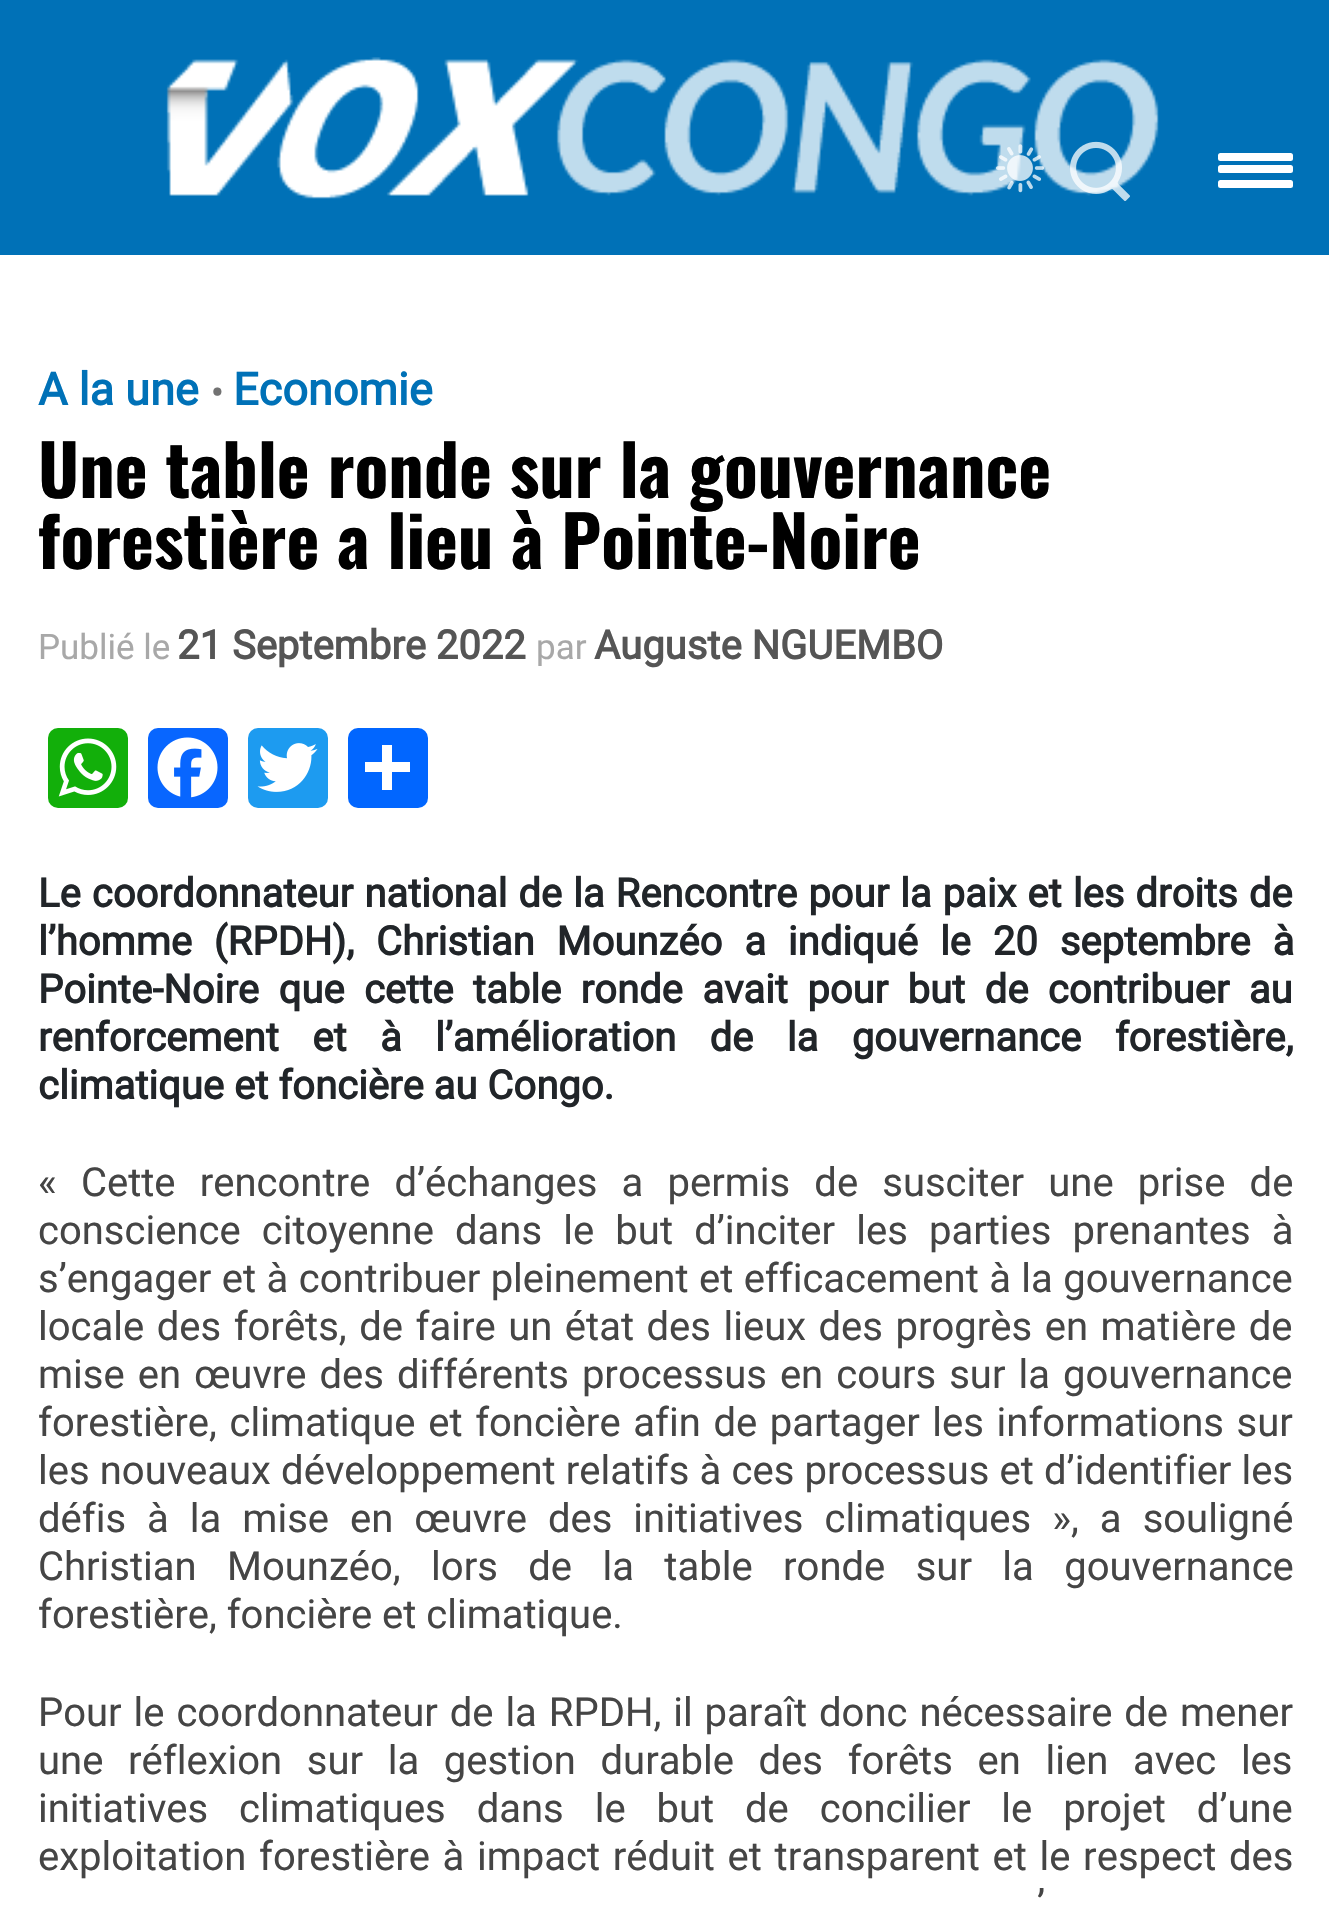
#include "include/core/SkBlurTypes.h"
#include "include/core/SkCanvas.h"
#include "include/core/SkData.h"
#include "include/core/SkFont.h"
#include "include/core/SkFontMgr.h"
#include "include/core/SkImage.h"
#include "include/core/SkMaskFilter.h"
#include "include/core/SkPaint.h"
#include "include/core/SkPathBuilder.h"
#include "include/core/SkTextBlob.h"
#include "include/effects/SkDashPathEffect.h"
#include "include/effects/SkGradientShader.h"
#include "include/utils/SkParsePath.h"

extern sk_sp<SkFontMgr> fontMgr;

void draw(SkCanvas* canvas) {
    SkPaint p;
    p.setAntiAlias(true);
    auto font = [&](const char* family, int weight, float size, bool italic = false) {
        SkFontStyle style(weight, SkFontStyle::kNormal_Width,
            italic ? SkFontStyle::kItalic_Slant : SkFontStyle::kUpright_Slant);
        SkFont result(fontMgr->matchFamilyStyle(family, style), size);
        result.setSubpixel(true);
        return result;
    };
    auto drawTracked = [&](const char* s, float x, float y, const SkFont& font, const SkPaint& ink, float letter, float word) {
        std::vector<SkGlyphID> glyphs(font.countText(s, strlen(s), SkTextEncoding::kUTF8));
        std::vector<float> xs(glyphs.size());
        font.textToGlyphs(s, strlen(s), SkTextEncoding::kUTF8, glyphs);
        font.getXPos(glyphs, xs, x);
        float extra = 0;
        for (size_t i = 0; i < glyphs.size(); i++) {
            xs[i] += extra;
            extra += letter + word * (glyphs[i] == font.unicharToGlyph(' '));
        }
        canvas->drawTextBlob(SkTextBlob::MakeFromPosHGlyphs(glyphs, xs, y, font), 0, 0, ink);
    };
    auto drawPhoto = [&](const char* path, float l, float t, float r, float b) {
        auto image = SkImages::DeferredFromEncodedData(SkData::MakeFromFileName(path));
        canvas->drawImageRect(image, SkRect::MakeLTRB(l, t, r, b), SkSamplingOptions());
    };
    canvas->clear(0xFFFFFFFF);
    p.setColor(0xFF0071B7);
    canvas->drawRect(SkRect::MakeLTRB(0, 0, 1329, 255), p);
    drawPhoto("media/1.png", 166, 57, 1159, 199);
    drawPhoto("media/2.png", 996, 144, 1044, 193);
    drawPhoto("media/3.png", 1070, 141, 1130, 201);
    p.setColor(0xFFFFFFFF);
    canvas->drawRoundRect(SkRect::MakeLTRB(1218, 153, 1293, 161), 2.5f, 2.5f, p);
    canvas->drawRoundRect(SkRect::MakeLTRB(1218, 165, 1293, 173), 2.5f, 2.5f, p);
    canvas->drawRoundRect(SkRect::MakeLTRB(1218, 180, 1293, 188), 2.5f, 2.5f, p);
    auto font1 = font("Roboto", 700, 45);
    p.setColor(0xFF0071B7);
    canvas->drawString("A la une", 38, 405, font1, p);
    auto font2 = font("Roboto", 700, 35);
    p.setColor(0xFF727272);
    canvas->drawString("•", 211, 405, font2, p);
    p.setColor(0xFF0071B7);
    canvas->drawString("Economie", 233, 405, font1, p);
    auto font3 = font("Oswald", 700, 70);
    p.setColor(0xFF000000);
    canvas->drawString("Une table ronde sur la gouvernance", 38, 498, font3, p);
    canvas->drawString("forestière a lieu à Pointe-Noire", 38, 569, font3, p);
    auto font4 = font("Roboto", 400, 35);
    p.setColor(0xFFA8A8A8);
    canvas->drawString("Publié le", 38, 659, font4, p);
    auto font5 = font("Roboto", 700, 40);
    p.setColor(0xFF555555);
    canvas->drawString("21 Septembre 2022", 177, 659, font5, p);
    p.setColor(0xFFA8A8A8);
    canvas->drawString("par", 536, 659, font4, p);
    p.setColor(0xFF555555);
    canvas->drawString("Auguste NGUEMBO", 594, 659, font5, p);
    p.setColor(0xFF12AF0A);
    canvas->drawRoundRect(SkRect::MakeLTRB(48, 728, 128, 808), 10, 10, p);
    drawPhoto("media/4.png", 58, 738, 117, 797);
    p.setColor(0xFF0866FF);
    canvas->drawRoundRect(SkRect::MakeLTRB(148, 728, 228, 808), 10, 10, p);
    drawPhoto("media/5.png", 157, 737, 218, 798);
    p.setColor(0xFF1D9BF0);
    canvas->drawRoundRect(SkRect::MakeLTRB(248, 728, 328, 808), 10, 10, p);
    drawPhoto("media/6.png", 257, 743, 318, 792);
    p.setColor(0xFF0166FF);
    canvas->drawRoundRect(SkRect::MakeLTRB(348, 728, 428, 808), 10, 10, p);
    p.setColor(0xFFFFFFFF);
    canvas->drawRect(SkRect::MakeLTRB(382, 745, 392, 790), p);
    canvas->drawRect(SkRect::MakeLTRB(365, 762, 410, 772), p);
    p.setColor(0xFF212529);
    drawTracked("Le coordonnateur national de la Rencontre pour la paix et les droits de", 38, 907, font5, p, 0, 1.1f);
    drawTracked("l’homme (RPDH), Christian Mounzéo a indiqué le 20 septembre à", 38, 955, font5, p, 0, 12);
    drawTracked("Pointe-Noire que cette table ronde avait pour but de contribuer au", 38, 1003, font5, p, 0, 9.5f);
    drawTracked("renforcement et à l’amélioration de la gouvernance forestière,", 38, 1051, font5, p, 0, 23.5f);
    canvas->drawString("climatique et foncière au Congo.", 38, 1099, font5, p);
    auto font6 = font("Roboto", 400, 40);
    p.setColor(0xFF454545);
    drawTracked("« Cette rencontre d’échanges a permis de susciter une prise de", 38, 1196, font6, p, 0, 14.25f);
    drawTracked("conscience citoyenne dans le but d’inciter les parties prenantes à", 38, 1244, font6, p, 0, 11.25f);
    drawTracked("s’engager et à contribuer pleinement et efficacement à la gouvernance", 38, 1292, font6, p, 0, 0.5f);
    drawTracked("locale des forêts, de faire un état des lieux des progrès en matière de", 38, 1340, font6, p, 0, 2.6f);
    drawTracked("mise en œuvre des différents processus en cours sur la gouvernance", 38, 1388, font6, p, 0, 3.1f);
    drawTracked("forestière, climatique et foncière afin de partager les informations sur", 38, 1436, font6, p, 0, 2.75f);
    drawTracked("les nouveaux développement relatifs à ces processus et d’identifier les", 38, 1484, font6, p, 0, 0.25f);
    drawTracked("défis à la mise en œuvre des initiatives climatiques », a souligné", 38, 1532, font6, p, 0, 11.1f);
    drawTracked("Christian Mounzéo, lors de la table ronde sur la gouvernance", 38, 1580, font6, p, 0, 20.5f);
    canvas->drawString("forestière, foncière et climatique.", 38, 1628, font6, p);
    drawTracked("Pour le coordonnateur de la RPDH, il paraît donc nécessaire de mener", 38, 1726, font6, p, 0, 2);
    drawTracked("une réflexion sur la gestion durable des forêts en lien avec les", 38, 1774, font6, p, 0, 14.75f);
    drawTracked("initiatives climatiques dans le but de concilier le projet d’une", 38, 1822, font6, p, 0, 21);
    drawTracked("exploitation forestière à impact réduit et transparent et le respect des", 38, 1870, font6, p, 0, 2.75f);
    drawTracked("’", 1037, 1918, font6, p, 0, 9);
}
